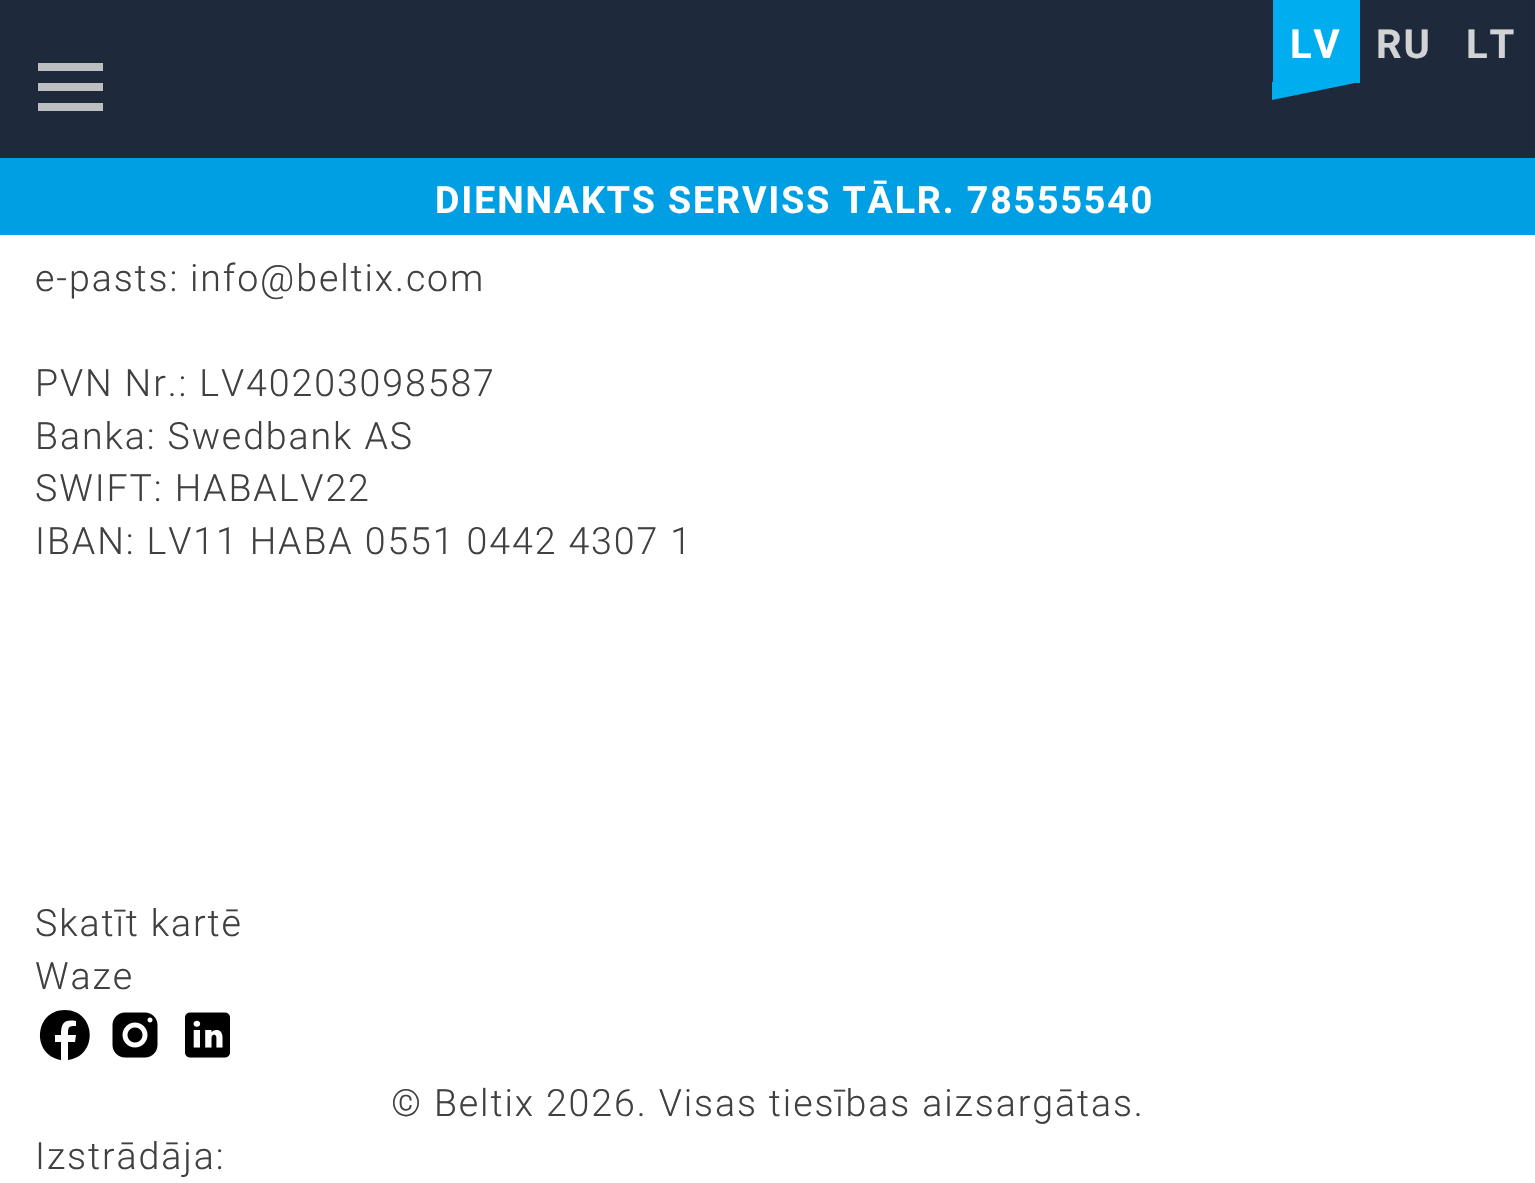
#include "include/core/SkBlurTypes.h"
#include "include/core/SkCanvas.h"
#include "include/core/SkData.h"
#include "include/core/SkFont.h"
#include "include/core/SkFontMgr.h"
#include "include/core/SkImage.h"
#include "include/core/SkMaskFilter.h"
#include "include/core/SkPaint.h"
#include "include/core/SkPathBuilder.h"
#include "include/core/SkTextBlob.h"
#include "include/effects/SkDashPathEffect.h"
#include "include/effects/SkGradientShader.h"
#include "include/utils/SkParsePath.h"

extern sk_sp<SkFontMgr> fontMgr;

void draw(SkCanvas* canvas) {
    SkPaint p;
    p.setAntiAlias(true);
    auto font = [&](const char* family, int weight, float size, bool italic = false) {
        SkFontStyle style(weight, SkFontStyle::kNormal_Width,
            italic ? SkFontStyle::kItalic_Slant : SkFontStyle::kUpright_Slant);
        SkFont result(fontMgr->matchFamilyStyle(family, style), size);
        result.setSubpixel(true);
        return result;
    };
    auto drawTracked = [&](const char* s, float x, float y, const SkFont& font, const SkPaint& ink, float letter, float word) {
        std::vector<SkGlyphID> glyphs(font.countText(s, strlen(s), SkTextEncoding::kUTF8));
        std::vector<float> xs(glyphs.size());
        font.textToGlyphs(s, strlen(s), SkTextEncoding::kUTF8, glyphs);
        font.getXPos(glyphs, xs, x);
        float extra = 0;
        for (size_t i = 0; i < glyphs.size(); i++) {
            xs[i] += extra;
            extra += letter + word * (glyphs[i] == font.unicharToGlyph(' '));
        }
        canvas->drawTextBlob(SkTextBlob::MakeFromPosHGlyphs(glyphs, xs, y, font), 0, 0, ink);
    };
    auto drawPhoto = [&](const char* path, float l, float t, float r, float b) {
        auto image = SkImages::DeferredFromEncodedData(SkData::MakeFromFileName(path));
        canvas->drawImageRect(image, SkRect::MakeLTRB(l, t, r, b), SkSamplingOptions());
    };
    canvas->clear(0xFFFFFFFF);
    p.setColor(0xFF1E293B);
    canvas->drawRect(SkRect::MakeLTRB(0, 0, 1535, 158), p);
    p.setColor(0xFF00AEEF);
    canvas->drawRect(SkRect::MakeLTRB(1273, 0, 1360, 83), p);
    auto font1 = font("Roboto", 700, 40);
    p.setColor(0xFFFFFFFF);
    drawTracked("LV", 1290, 58, font1, p, 1.9f, 0);
    p.setColor(0xFF00AEEF);
    canvas->drawPath(SkPathBuilder().moveTo(1272, 82).lineTo(1360, 82).lineTo(1272, 100).close().detach(), p);
    p.setColor(0xFFD1D3D4);
    drawTracked("RU", 1376, 58, font1, p, 1.9f, 0);
    drawTracked("LT", 1466, 58, font1, p, 1.9f, 0);
    {
        const struct { float l, t, r, b; SkColor color; } items[] = {
            {38, 83, 103, 91, 0xFFBCBEC0},
            {38, 63, 103, 71, 0xFFBCBEC0},
            {38, 103, 103, 111, 0xFFBCBEC0},
            {0, 158, 1535, 235, 0xFF009EE3},
        };
        for (auto [l, t, r, b, color] : items) {
            p.setColor(color);
            canvas->drawRect(SkRect::MakeLTRB(l, t, r, b), p);
        }
    }
    auto font2 = font("Roboto", 700, 37.5f);
    p.setColor(0xFFFFFFFF);
    drawTracked("DIENNAKTS SERVISS TĀLR. 78555540", 435, 213, font2, p, 1.9f, 0);
    auto font3 = font("Roboto", 300, 37.5f);
    p.setColor(0xFF404040);
    {
        const struct { const char* s; float x, y; } items[] = {
            {"e-pasts:", 35, 291},
            {"info@beltix.com", 190, 291},
            {"PVN Nr.: LV40203098587", 35, 396},
            {"Banka: Swedbank AS", 35, 449},
            {"SWIFT: HABALV22", 35, 501},
            {"IBAN: LV11 HABA 0551 0442 4307 1", 35, 554},
            {"Skatīt kartē", 35, 936},
            {"Waze", 35, 989},
        };
        for (auto [s, x, y] : items) {
            drawTracked(s, x, y, font3, p, 1.9f, 0);
        }
    }
    p.setColor(0xFF000000);
    canvas->drawPath(SkPathBuilder().moveTo(65, 1010).cubicTo(34, 1010, 31, 1055, 61, 1060).lineTo(61, 1042).lineTo(55, 1042).lineTo(55, 1035).lineTo(61, 1035).cubicTo(61, 1023, 64, 1019, 76, 1021).lineTo(76, 1026).cubicTo(68, 1026, 68, 1027, 68, 1035).lineTo(76, 1035).lineTo(75, 1042).lineTo(68, 1042).lineTo(68, 1060).cubicTo(99, 1056, 96, 1010, 65, 1010).close().detach(), p);
    drawPhoto("media/1.png", 112, 1012, 158, 1058);
    drawPhoto("media/2.png", 185, 1012, 230, 1058);
    p.setColor(0xFF404040);
    drawTracked("© Beltix 2026. Visas tiesības aizsargātas.", 391, 1116, font3, p, 1.9f, 0);
    drawTracked("Izstrādāja:", 35, 1169, font3, p, 1.9f, 0);
}
